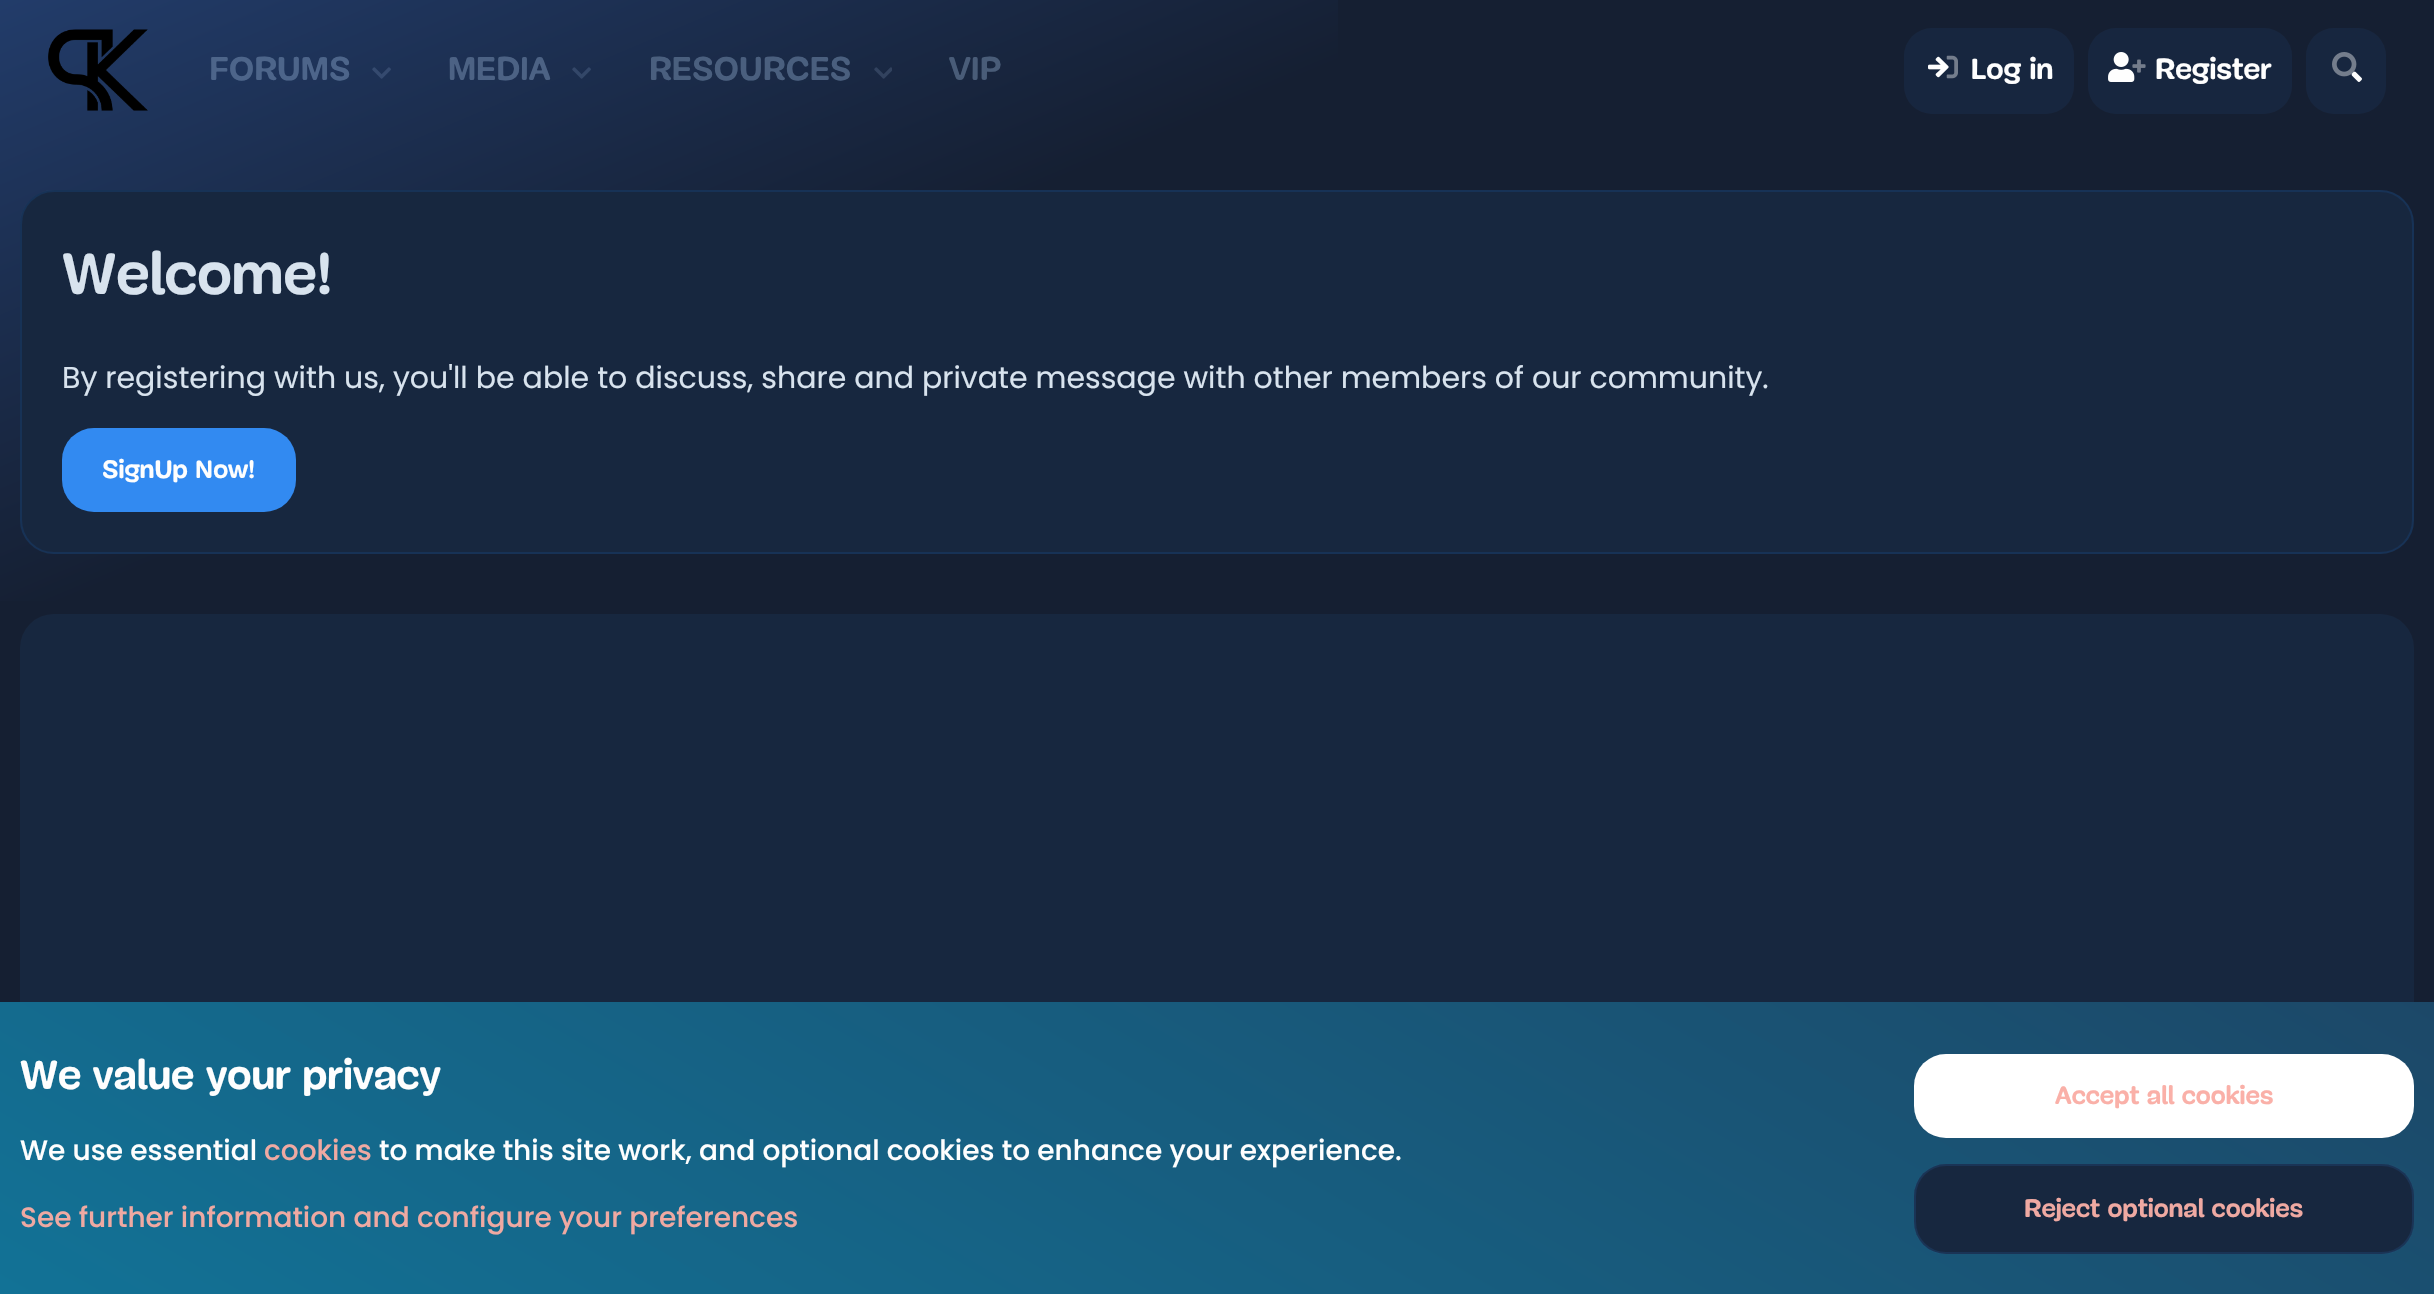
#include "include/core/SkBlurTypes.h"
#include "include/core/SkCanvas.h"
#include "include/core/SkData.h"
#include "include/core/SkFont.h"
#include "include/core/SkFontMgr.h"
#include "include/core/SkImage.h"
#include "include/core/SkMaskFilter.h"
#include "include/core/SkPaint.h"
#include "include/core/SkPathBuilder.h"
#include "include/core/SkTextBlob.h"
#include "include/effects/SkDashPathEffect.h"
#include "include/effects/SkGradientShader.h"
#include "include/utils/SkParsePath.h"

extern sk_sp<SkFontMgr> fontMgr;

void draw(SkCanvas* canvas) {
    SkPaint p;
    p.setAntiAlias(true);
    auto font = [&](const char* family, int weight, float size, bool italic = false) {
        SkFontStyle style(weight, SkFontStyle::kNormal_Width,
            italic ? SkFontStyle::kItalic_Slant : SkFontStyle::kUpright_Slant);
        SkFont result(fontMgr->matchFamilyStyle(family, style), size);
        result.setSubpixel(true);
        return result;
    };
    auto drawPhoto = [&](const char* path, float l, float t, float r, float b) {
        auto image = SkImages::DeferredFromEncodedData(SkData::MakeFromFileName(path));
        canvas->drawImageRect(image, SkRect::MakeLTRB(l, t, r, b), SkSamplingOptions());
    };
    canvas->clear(0xFF151F32);
    {
        const SkColor colors[] = {0xFF223C6A, 0xFF151F32};
        const float stops[] = {0, 1};
        const SkPoint ends[] = {{0, 0}, {226, 534}};
        p.setShader(SkGradientShader::MakeLinear(ends, colors, stops, 2, SkTileMode::kClamp));
        p.setAlpha(255);
    }
    canvas->drawRect(SkRect::MakeLTRB(0, 0, 1338, 601), p);
    drawPhoto("media/1.png", 48, 29, 148, 111);
    auto font1 = font("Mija", 700, 34);
    p.setShader(nullptr);
    p.setColor(0xFF4D658A);
    canvas->drawString("FORUMS", 209, 80, font1, p);
    drawPhoto("media/2.png", 372, 67, 391, 79);
    p.setColor(0xFF4C6284);
    canvas->drawString("MEDIA", 448, 80, font1, p);
    drawPhoto("media/3.png", 572, 67, 591, 79);
    p.setColor(0xFF4A5F7E);
    canvas->drawString("RESOURCES", 649, 80, font1, p);
    drawPhoto("media/4.png", 874, 67, 892, 79);
    p.setColor(0xFF495C78);
    canvas->drawString("VIP", 949, 80, font1, p);
    p.setColor(0xFF17263F);
    canvas->drawRoundRect(SkRect::MakeLTRB(1904, 28, 2074, 114), 28, 28, p);
    drawPhoto("media/5.png", 1928, 55, 1958, 79);
    auto font2 = font("Mija", 700, 30);
    p.setColor(0xFFFEFEFE);
    canvas->drawString("Log in", 1971, 79, font2, p);
    p.setColor(0xFF17263F);
    canvas->drawRoundRect(SkRect::MakeLTRB(2088, 28, 2292, 114), 28, 28, p);
    drawPhoto("media/6.png", 2108, 52, 2146, 82);
    p.setColor(0xFFFEFEFE);
    canvas->drawString("Register", 2155, 79, font2, p);
    p.setColor(0xFF17263F);
    canvas->drawRoundRect(SkRect::MakeLTRB(2306, 28, 2386, 114), 28, 28, p);
    drawPhoto("media/7.png", 2332, 52, 2362, 82);
    p.setColor(0xFF17273F);
    canvas->drawRoundRect(SkRect::MakeLTRB(20, 190, 2414, 554), 34, 34, p);
    p.setStyle(SkPaint::kStroke_Style);
    p.setStrokeWidth(2);
    p.setColor(0x21157AEF);
    canvas->drawRoundRect(SkRect::MakeLTRB(21, 191, 2413, 553), 33, 33, p);
    auto font3 = font("Mija", 700, 60);
    p.setStyle(SkPaint::kFill_Style);
    p.setColor(0xFFD8E3EE);
    canvas->drawString("Welcome!", 62, 294, font3, p);
    auto font4 = font("Poppins", 400, 30);
    canvas->drawString("By registering with us, you'll be able to discuss, share and private message with other members of our community.", 62, 388, font4, p);
    p.setColor(0xFF328AF1);
    canvas->drawRoundRect(SkRect::MakeLTRB(62, 428, 296, 512), 32, 32, p);
    auto font5 = font("Mija", 700, 26);
    p.setColor(0xFFFEFEFE);
    canvas->drawString("SignUp Now!", 102, 478, font5, p);
    p.setColor(0xFF17273F);
    canvas->drawRoundRect(SkRect::MakeLTRB(20, 614, 2414, 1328), 34, 34, p);
    {
        const SkColor colors[] = {0xFF127296, 0xFF1C4868};
        const float stops[] = {0, 1};
        const SkPoint ends[] = {{850, 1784}, {1584, 512}};
        p.setShader(SkGradientShader::MakeLinear(ends, colors, stops, 2, SkTileMode::kClamp));
        p.setAlpha(255);
    }
    canvas->drawRect(SkRect::MakeLTRB(0, 1002, 2434, 1294), p);
    auto font6 = font("Mija", 700, 42);
    p.setShader(nullptr);
    p.setColor(0xFFFEFEFE);
    canvas->drawString("We value your privacy", 20, 1089, font6, p);
    auto font7 = font("Poppins", 500, 28);
    canvas->drawString("We use essential", 20, 1160, font7, p);
    p.setColor(0xFFEFA9A2);
    canvas->drawString("cookies", 264, 1160, font7, p);
    p.setColor(0xFFFEFEFE);
    canvas->drawString("to make this site work, and optional cookies to enhance your experience.", 379, 1160, font7, p);
    p.setColor(0xFFEFA9A2);
    canvas->drawString("See further information and configure your preferences", 20, 1227, font7, p);
    p.setColor(0xFFFFFFFF);
    canvas->drawRoundRect(SkRect::MakeLTRB(1914, 1054, 2414, 1138), 32, 32, p);
    p.setColor(0xFFFAB0A8);
    canvas->drawString("Accept all cookies", 2055, 1104, font5, p);
    p.setColor(0xFF17273F);
    canvas->drawRoundRect(SkRect::MakeLTRB(1914, 1164, 2414, 1254), 32, 32, p);
    p.setStyle(SkPaint::kStroke_Style);
    p.setColor(0x21328AF1);
    canvas->drawRoundRect(SkRect::MakeLTRB(1915, 1165, 2413, 1253), 31, 31, p);
    p.setStyle(SkPaint::kFill_Style);
    p.setColor(0xFFEFA9A2);
    canvas->drawString("Reject optional cookies", 2024, 1217, font5, p);
}
